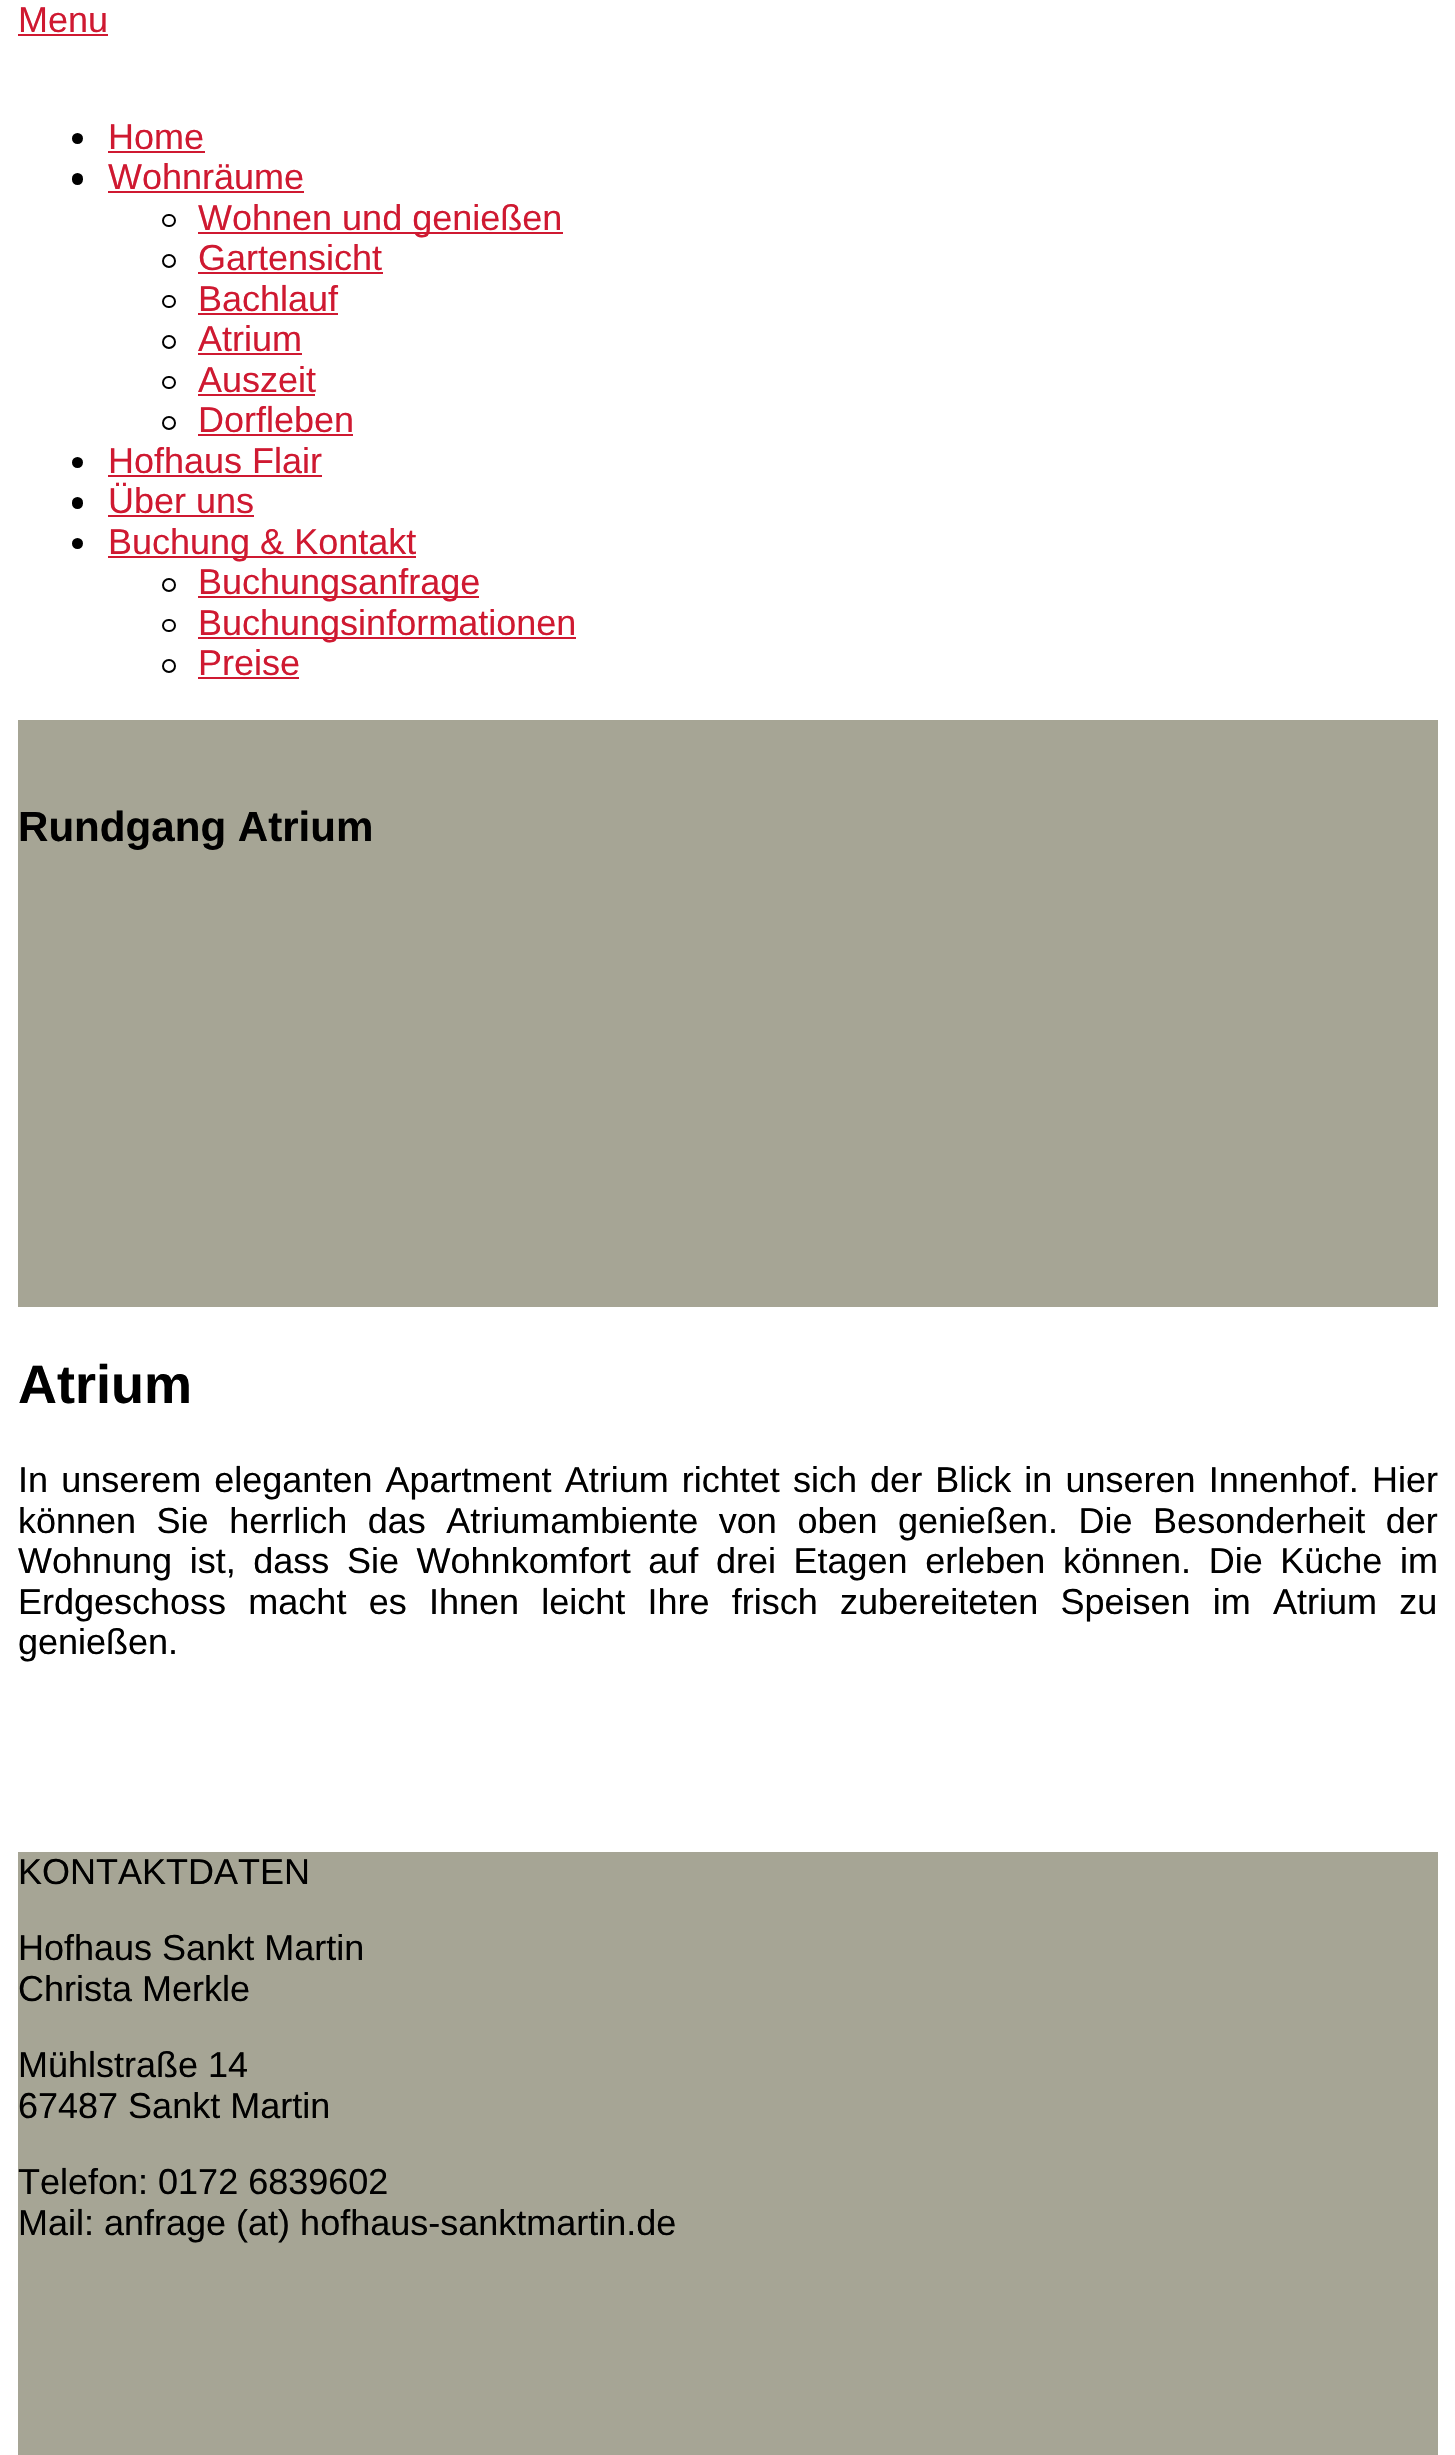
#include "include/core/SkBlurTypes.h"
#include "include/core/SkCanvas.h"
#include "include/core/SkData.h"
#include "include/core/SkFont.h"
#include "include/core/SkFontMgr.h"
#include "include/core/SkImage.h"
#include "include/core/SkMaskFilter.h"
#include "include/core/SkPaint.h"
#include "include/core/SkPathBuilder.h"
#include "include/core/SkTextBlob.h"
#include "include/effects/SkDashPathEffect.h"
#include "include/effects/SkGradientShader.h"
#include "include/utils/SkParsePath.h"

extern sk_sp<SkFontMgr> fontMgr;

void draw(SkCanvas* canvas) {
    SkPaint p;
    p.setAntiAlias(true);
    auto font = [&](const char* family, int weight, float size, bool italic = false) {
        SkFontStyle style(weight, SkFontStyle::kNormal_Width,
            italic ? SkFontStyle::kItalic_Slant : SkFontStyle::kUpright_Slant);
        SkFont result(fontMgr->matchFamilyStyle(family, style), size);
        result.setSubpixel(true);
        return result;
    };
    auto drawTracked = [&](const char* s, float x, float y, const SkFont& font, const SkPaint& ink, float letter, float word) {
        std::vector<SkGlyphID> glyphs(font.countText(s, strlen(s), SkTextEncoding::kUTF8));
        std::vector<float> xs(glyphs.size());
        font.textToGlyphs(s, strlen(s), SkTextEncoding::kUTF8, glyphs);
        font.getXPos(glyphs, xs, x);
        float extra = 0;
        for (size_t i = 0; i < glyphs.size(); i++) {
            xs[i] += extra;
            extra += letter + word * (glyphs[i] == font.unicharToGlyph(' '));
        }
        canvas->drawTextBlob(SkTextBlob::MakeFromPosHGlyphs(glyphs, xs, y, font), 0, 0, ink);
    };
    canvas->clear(0xFFFFFFFF);
    auto font1 = font("Liberation Sans", 400, 36);
    p.setColor(0xFFCF1931);
    canvas->drawString("Menu", 18, 32, font1, p);
    canvas->drawRect(SkRect::MakeLTRB(18, 34, 108, 36), p);
    p.setColor(0xFF000000);
    canvas->drawCircle(77.5f, 138.5f, 5.5f, p);
    p.setColor(0xFFCF1931);
    canvas->drawString("Home", 108, 149, font1, p);
    canvas->drawRect(SkRect::MakeLTRB(108, 151, 205, 153), p);
    p.setColor(0xFF000000);
    canvas->drawRoundRect(SkRect::MakeLTRB(72, 173, 83, 185), 5.5f, 5.5f, p);
    p.setColor(0xFFCF1931);
    canvas->drawString("Wohnräume", 108, 189, font1, p);
    canvas->drawRect(SkRect::MakeLTRB(108, 191, 304, 193), p);
    p.setStyle(SkPaint::kStroke_Style);
    p.setStrokeWidth(2);
    p.setColor(0xFF000000);
    canvas->drawRoundRect(SkRect::MakeLTRB(163, 215, 175, 226), 5.5f, 5.5f, p);
    p.setStyle(SkPaint::kFill_Style);
    p.setColor(0xFFCF1931);
    canvas->drawRect(SkRect::MakeLTRB(198, 232, 563, 234), p);
    canvas->drawString("Wohnen und genießen", 198, 230, font1, p);
    p.setStyle(SkPaint::kStroke_Style);
    p.setColor(0xFF000000);
    canvas->drawCircle(169, 261, 6, p);
    p.setStyle(SkPaint::kFill_Style);
    p.setColor(0xFFCF1931);
    canvas->drawString("Gartensicht", 198, 270, font1, p);
    canvas->drawRect(SkRect::MakeLTRB(198, 272, 383, 274), p);
    p.setStyle(SkPaint::kStroke_Style);
    p.setColor(0xFF000000);
    canvas->drawRoundRect(SkRect::MakeLTRB(163, 296, 175, 307), 5.5f, 5.5f, p);
    p.setStyle(SkPaint::kFill_Style);
    p.setColor(0xFFCF1931);
    canvas->drawString("Bachlauf", 198, 311, font1, p);
    canvas->drawRect(SkRect::MakeLTRB(198, 313, 338, 315), p);
    p.setStyle(SkPaint::kStroke_Style);
    p.setColor(0xFF000000);
    canvas->drawCircle(169, 342, 6, p);
    p.setStyle(SkPaint::kFill_Style);
    p.setColor(0xFFCF1931);
    canvas->drawString("Atrium", 198, 351, font1, p);
    canvas->drawRect(SkRect::MakeLTRB(198, 353, 302, 355), p);
    p.setStyle(SkPaint::kStroke_Style);
    p.setColor(0xFF000000);
    canvas->drawRoundRect(SkRect::MakeLTRB(163, 377, 175, 388), 5.5f, 5.5f, p);
    p.setStyle(SkPaint::kFill_Style);
    p.setColor(0xFFCF1931);
    canvas->drawString("Auszeit", 198, 392, font1, p);
    canvas->drawRect(SkRect::MakeLTRB(198, 394, 315, 396), p);
    p.setStyle(SkPaint::kStroke_Style);
    p.setColor(0xFF000000);
    canvas->drawCircle(169, 423, 6, p);
    p.setStyle(SkPaint::kFill_Style);
    p.setColor(0xFFCF1931);
    canvas->drawString("Dorfleben", 198, 432, font1, p);
    canvas->drawRect(SkRect::MakeLTRB(198, 434, 353, 436), p);
    p.setColor(0xFF000000);
    canvas->drawCircle(77.5f, 462.5f, 5.5f, p);
    p.setColor(0xFFCF1931);
    canvas->drawString("Hofhaus Flair", 108, 473, font1, p);
    canvas->drawRect(SkRect::MakeLTRB(108, 475, 322, 477), p);
    p.setColor(0xFF000000);
    canvas->drawRoundRect(SkRect::MakeLTRB(72, 497, 83, 509), 5.5f, 5.5f, p);
    p.setColor(0xFFCF1931);
    canvas->drawString("Über uns", 108, 513, font1, p);
    canvas->drawRect(SkRect::MakeLTRB(108, 515, 254, 517), p);
    p.setColor(0xFF000000);
    canvas->drawCircle(77.5f, 543.5f, 5.5f, p);
    p.setColor(0xFFCF1931);
    canvas->drawRect(SkRect::MakeLTRB(108, 556, 416, 558), p);
    canvas->drawString("Buchung & Kontakt", 108, 554, font1, p);
    p.setStyle(SkPaint::kStroke_Style);
    p.setColor(0xFF000000);
    canvas->drawCircle(169, 585, 6, p);
    p.setStyle(SkPaint::kFill_Style);
    p.setColor(0xFFCF1931);
    canvas->drawRect(SkRect::MakeLTRB(198, 596, 479, 598), p);
    canvas->drawString("Buchungsanfrage", 198, 594, font1, p);
    p.setStyle(SkPaint::kStroke_Style);
    p.setColor(0xFF000000);
    canvas->drawRoundRect(SkRect::MakeLTRB(163, 620, 175, 631), 5.5f, 5.5f, p);
    p.setStyle(SkPaint::kFill_Style);
    p.setColor(0xFFCF1931);
    canvas->drawRect(SkRect::MakeLTRB(198, 637, 576, 639), p);
    canvas->drawString("Buchungsinformationen", 198, 635, font1, p);
    p.setStyle(SkPaint::kStroke_Style);
    p.setColor(0xFF000000);
    canvas->drawCircle(169, 666, 6, p);
    p.setStyle(SkPaint::kFill_Style);
    p.setColor(0xFFCF1931);
    canvas->drawString("Preise", 198, 675, font1, p);
    canvas->drawRect(SkRect::MakeLTRB(198, 677, 299, 679), p);
    p.setColor(0xFFA6A595);
    canvas->drawRect(SkRect::MakeLTRB(18, 720, 1438, 1307), p);
    auto font2 = font("Liberation Sans", 700, 42.1f);
    p.setColor(0xFF000000);
    canvas->drawString("Rundgang Atrium", 18, 841, font2, p);
    auto font3 = font("Liberation Sans", 700, 54);
    canvas->drawString("Atrium", 18, 1403, font3, p);
    drawTracked("In unserem eleganten Apartment Atrium richtet sich der Blick in unseren Innenhof. Hier", 18, 1492, font1, p, 0, 3.1f);
    drawTracked("können Sie herrlich das Atriumambiente von oben genießen. Die Besonderheit der", 18, 1533, font1, p, 0, 10.5f);
    drawTracked("Wohnung ist, dass Sie Wohnkomfort auf drei Etagen erleben können. Die Küche im", 18, 1573, font1, p, 0, 7.6f);
    drawTracked("Erdgeschoss macht es Ihnen leicht Ihre frisch zubereiteten Speisen im Atrium zu", 18, 1614, font1, p, 0, 12.25f);
    canvas->drawString("genießen.", 18, 1654, font1, p);
    p.setColor(0xFFA6A595);
    canvas->drawRect(SkRect::MakeLTRB(18, 1852, 1438, 2455), p);
    p.setColor(0xFF000000);
    {
        const struct { const char* s; float x, y; } items[] = {
            {"KONTAKTDATEN", 18, 1884},
            {"Hofhaus Sankt Martin", 18, 1960},
            {"Christa Merkle", 18, 2001},
            {"Mühlstraße 14", 18, 2077},
            {"67487 Sankt Martin", 18, 2118},
            {"Telefon: 0172 6839602", 18, 2194},
            {"Mail: anfrage (at) hofhaus-sanktmartin.de", 18, 2235},
        };
        for (auto [s, x, y] : items) {
            canvas->drawString(s, x, y, font1, p);
        }
    }
}
